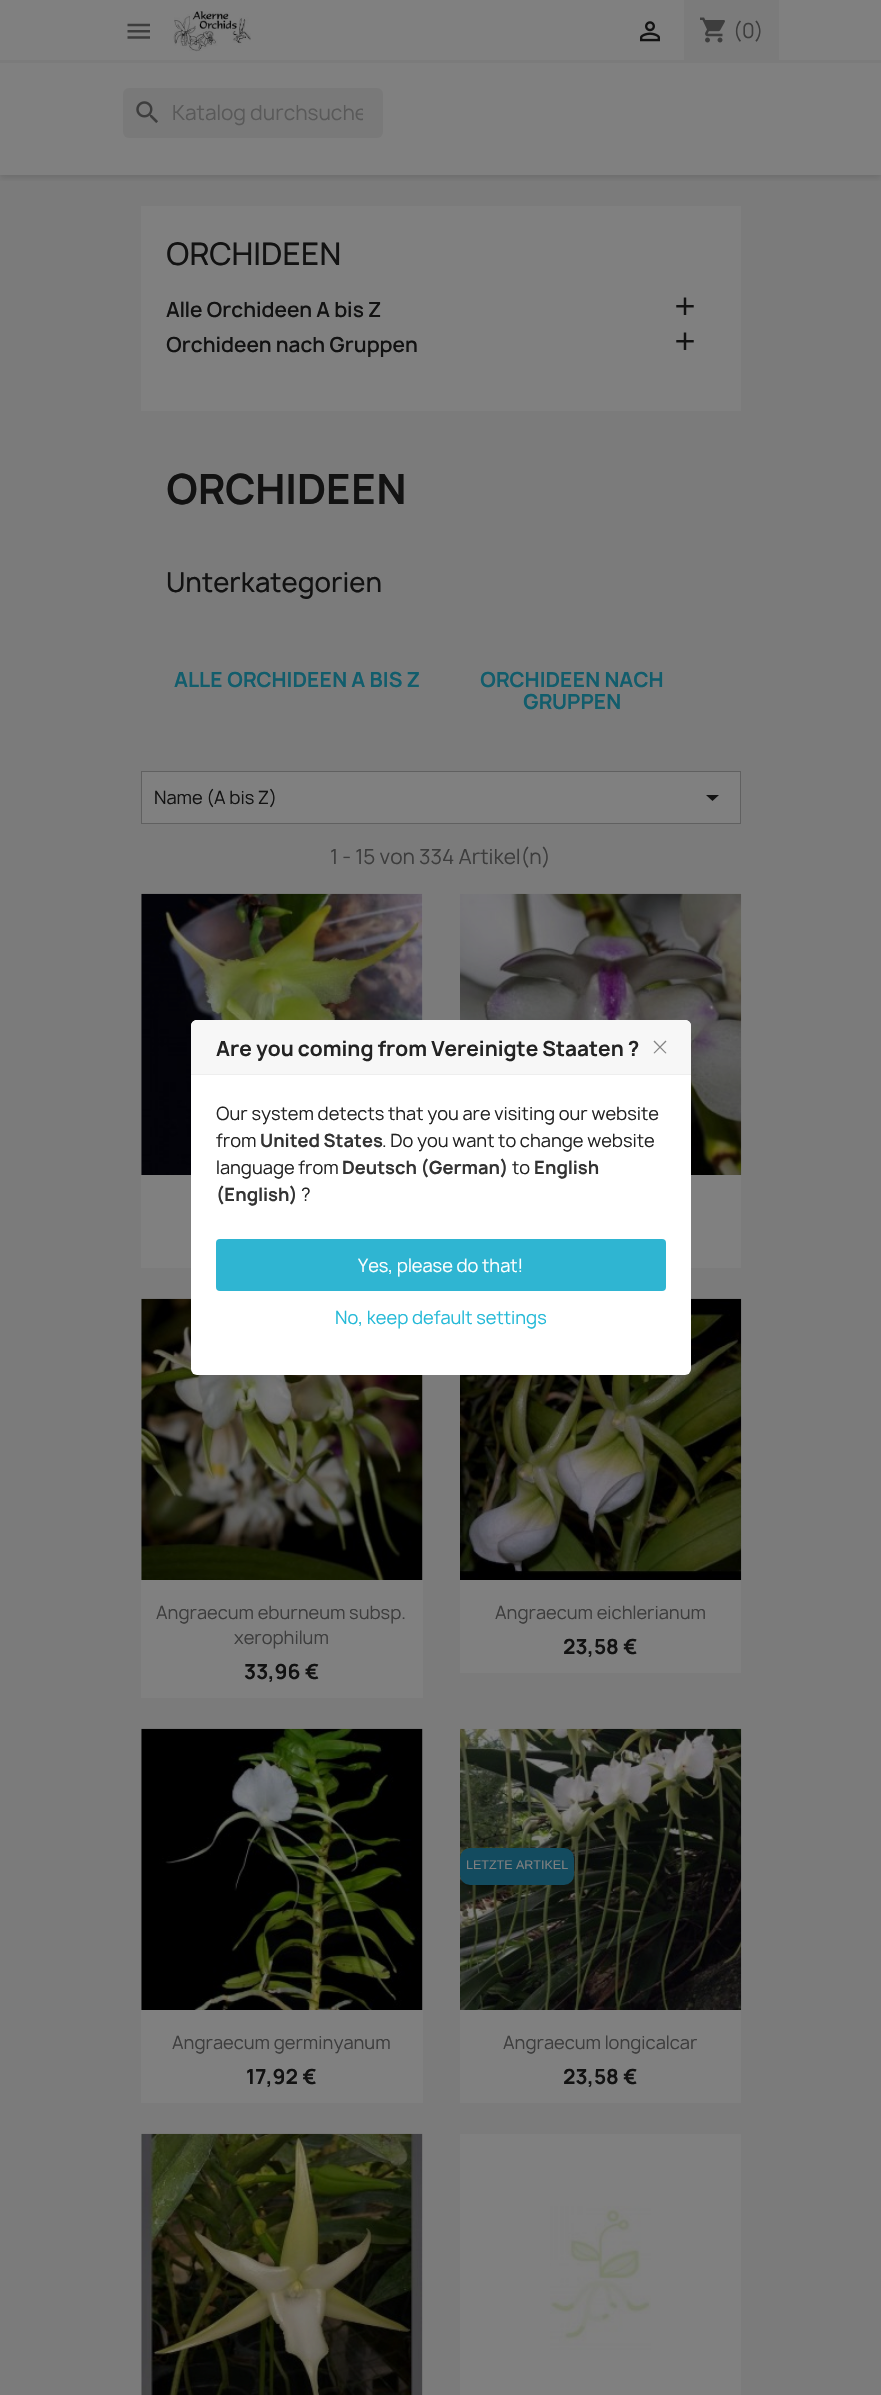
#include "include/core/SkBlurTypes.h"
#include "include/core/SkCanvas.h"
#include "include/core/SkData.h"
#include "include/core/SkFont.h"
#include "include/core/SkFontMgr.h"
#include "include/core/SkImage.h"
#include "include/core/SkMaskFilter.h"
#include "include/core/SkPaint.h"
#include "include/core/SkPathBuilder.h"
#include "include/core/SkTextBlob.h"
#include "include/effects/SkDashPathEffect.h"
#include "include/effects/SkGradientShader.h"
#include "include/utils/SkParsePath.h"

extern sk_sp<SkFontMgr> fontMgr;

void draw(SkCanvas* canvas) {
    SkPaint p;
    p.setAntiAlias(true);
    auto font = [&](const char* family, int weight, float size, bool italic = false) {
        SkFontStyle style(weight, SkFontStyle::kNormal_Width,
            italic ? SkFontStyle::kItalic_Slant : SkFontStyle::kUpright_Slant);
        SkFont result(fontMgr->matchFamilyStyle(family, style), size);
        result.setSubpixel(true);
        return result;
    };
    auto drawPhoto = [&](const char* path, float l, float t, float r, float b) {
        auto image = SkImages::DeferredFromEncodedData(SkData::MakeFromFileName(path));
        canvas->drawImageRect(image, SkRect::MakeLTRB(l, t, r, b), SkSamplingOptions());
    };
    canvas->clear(0xFF808080);
    p.setColor(0xFF7B7B7B);
    canvas->drawRect(SkRect::MakeLTRB(0, 175, 881, 2395), p);
    canvas->save();
    canvas->clipRect(SkRect::MakeLTRB(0, 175, 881, 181));
    p.setColor(0x1C000000);
    p.setMaskFilter(SkMaskFilter::MakeBlur(kNormal_SkBlurStyle, 3));
    canvas->drawRect(SkRect::MakeLTRB(0, 3, 881, 178), p);
    p.setMaskFilter(nullptr);
    canvas->restore();
    p.setColor(0xFF7B7B7B);
    canvas->drawRect(SkRect::MakeLTRB(0, 60, 881, 63), p);
    drawPhoto("media/1.png", 127, 23, 150, 39);
    drawPhoto("media/2.png", 173, 11, 251, 52);
    drawPhoto("media/3.png", 640, 21, 660, 42);
    canvas->drawRect(SkRect::MakeLTRB(684, 0, 779, 60), p);
    drawPhoto("media/4.png", 700, 17, 725, 43);
    auto font1 = font("Manrope", 400, 20);
    p.setColor(0xFF3D3D3D);
    canvas->drawString("(0)", 733, 38, font1, p);
    p.setColor(0xFF797979);
    canvas->drawRoundRect(SkRect::MakeLTRB(123, 88, 383, 138), 6, 6, p);
    drawPhoto("media/5.png", 136, 101, 158, 123);
    canvas->save();
    canvas->clipRect(SkRect::MakeLTRB(173, 96, 363, 130));
    p.setColor(0xFF595959);
    canvas->drawString("Katalog durchsuche", 172, 120, font1, p);
    canvas->restore();
    p.setColor(0xFF808080);
    canvas->drawRect(SkRect::MakeLTRB(141, 206, 741, 411), p);
    auto font2 = font("Manrope", 500, 30);
    p.setColor(0xFF121212);
    canvas->drawString("ORCHIDEEN", 166, 265, font2, p);
    auto font3 = font("Manrope", 600, 20);
    canvas->drawString("Alle Orchideen A bis Z", 166, 317, font3, p);
    drawPhoto("media/6.png", 676, 297, 694, 315);
    canvas->drawString("Orchideen nach Gruppen", 166, 352, font3, p);
    drawPhoto("media/6.png", 676, 332, 694, 350);
    auto font4 = font("Manrope", 700, 40);
    canvas->drawString("ORCHIDEEN", 166, 504, font4, p);
    auto font5 = font("Manrope", 500, 26.25f);
    canvas->drawString("Unterkategorien", 166, 592, font5, p);
    auto font6 = font("Manrope", 700, 20);
    p.setColor(0xFF125D6C);
    {
        const struct { const char* s; float x, y; } items[] = {
            {"ALLE ORCHIDEEN A BIS Z", 174, 687},
            {"ORCHIDEEN NACH", 480, 687},
            {"GRUPPEN", 523, 709},
        };
        for (auto [s, x, y] : items) {
            canvas->drawString(s, x, y, font6, p);
        }
    }
    p.setColor(0xFF808080);
    canvas->drawRect(SkRect::MakeLTRB(141.5f, 771.5f, 740.5f, 823.5f), p);
    p.setStyle(SkPaint::kStroke_Style);
    p.setStrokeWidth(1);
    p.setColor(0xFF606060);
    canvas->drawRect(SkRect::MakeLTRB(141.5f, 771.5f, 740.5f, 823.5f), p);
    auto font7 = font("Manrope", 400, 17.5f);
    p.setStyle(SkPaint::kFill_Style);
    p.setColor(0xFF121212);
    canvas->drawString("Name (A bis Z)", 154, 804, font7, p);
    canvas->drawPath(SkPathBuilder().moveTo(706, 795).lineTo(719, 795).lineTo(712.5f, 801).close().detach(), p);
    p.setColor(0xFF3D3D3D);
    canvas->drawString("1 - 15 von 334 Artikel(n)", 330, 864, font1, p);
    p.setColor(0xFF808080);
    canvas->drawRect(SkRect::MakeLTRB(141, 894, 423, 1268), p);
    drawPhoto("media/7.png", 141, 893, 423, 1175);
    canvas->drawRect(SkRect::MakeLTRB(691, 1175, 741, 1268), p);
    drawPhoto("media/8.png", 460, 893, 742, 1175);
    canvas->drawRect(SkRect::MakeLTRB(141, 1299, 423, 1698), p);
    drawPhoto("media/9.png", 141, 1298, 423, 1580);
    p.setColor(0xFF3D3D3D);
    canvas->drawString("Angraecum eburneum subsp.", 156, 1619, font7, p);
    canvas->drawString("xerophilum", 234, 1644, font7, p);
    p.setColor(0xFF121212);
    canvas->drawString("33,96 €", 244, 1679, font6, p);
    p.setColor(0xFF808080);
    canvas->drawRect(SkRect::MakeLTRB(460, 1580, 741, 1673), p);
    drawPhoto("media/10.png", 460, 1298, 742, 1580);
    p.setColor(0xFF3D3D3D);
    canvas->drawString("Angraecum eichlerianum", 495, 1619, font7, p);
    p.setColor(0xFF121212);
    canvas->drawString("23,58 €", 563, 1654, font6, p);
    p.setColor(0xFF808080);
    canvas->drawRect(SkRect::MakeLTRB(141, 1729, 423, 2103), p);
    drawPhoto("media/11.png", 141, 1728, 423, 2010);
    p.setColor(0xFF3D3D3D);
    canvas->drawString("Angraecum germinyanum", 172, 2049, font7, p);
    p.setColor(0xFF121212);
    canvas->drawString("17,92 €", 246, 2084, font6, p);
    p.setColor(0xFF808080);
    canvas->drawRect(SkRect::MakeLTRB(460, 2010, 741, 2103), p);
    drawPhoto("media/12.png", 460, 1728, 742, 2010);
    p.setColor(0xFF134B5F);
    canvas->drawRoundRect(SkRect::MakeLTRB(460, 1848, 574, 1885), 10, 10, p);
    auto font8 = font("Liberation Sans", 400, 12.5f);
    p.setColor(0xFF808080);
    canvas->drawString("LETZTE ARTIKEL", 466, 1869, font8, p);
    p.setColor(0xFF3D3D3D);
    canvas->drawString("Angraecum longicalcar", 503, 2049, font7, p);
    p.setColor(0xFF121212);
    canvas->drawString("23,58 €", 563, 2084, font6, p);
    p.setColor(0xFF808080);
    canvas->drawRect(SkRect::MakeLTRB(141, 2134, 423, 2395), p);
    drawPhoto("media/13.png", 141, 2133, 423, 2395);
    canvas->drawRect(SkRect::MakeLTRB(460, 2134, 741, 2395), p);
    drawPhoto("media/14.png", 550, 2206, 651, 2350);
    p.setColor(0xFFFFFFFF);
    canvas->drawRoundRect(SkRect::MakeLTRB(191, 1020, 691, 1375), 6, 6, p);
    p.setColor(0xFFF7F7F7);
    canvas->drawPath(SkPathBuilder().moveTo(197, 1020).lineTo(685, 1020).cubicTo(688.5f, 1020, 691, 1022.5f, 691, 1026).lineTo(691, 1075).lineTo(191, 1075).lineTo(191, 1026).cubicTo(191, 1022.5f, 193.5f, 1020, 197, 1020).close().detach(), p);
    p.setColor(0xFFEEEEEE);
    canvas->drawRect(SkRect::MakeLTRB(191, 1074, 691, 1075), p);
    p.setColor(0xFF232323);
    canvas->drawString("Are you coming from Vereinigte Staaten ?", 216, 1056, font6, p);
    p.setColor(0xFF848484);
    canvas->drawPath(SkPathBuilder().moveTo(665.5f, 1040.5f).lineTo(666.5f, 1041.5f).lineTo(654.5f, 1053.5f).lineTo(653.5f, 1053).close().detach(), p);
    canvas->drawPath(SkPathBuilder().moveTo(653.5f, 1041.5f).lineTo(654.5f, 1040.5f).lineTo(666.5f, 1053).lineTo(665.5f, 1053.5f).close().detach(), p);
    p.setColor(0xFF232323);
    canvas->drawString("Our system detects that you are visiting our website", 216, 1120, font7, p);
    canvas->drawString("from", 216, 1147, font7, p);
    auto font9 = font("Manrope", 700, 17.5f);
    p.setColor(0xFF333333);
    canvas->drawString("United States", 260, 1147, font9, p);
    p.setColor(0xFF232323);
    canvas->drawString(". Do you want to change website", 382, 1147, font7, p);
    canvas->drawString("language from", 216, 1174, font7, p);
    p.setColor(0xFF333333);
    canvas->drawString("Deutsch (German)", 342, 1174, font9, p);
    p.setColor(0xFF232323);
    canvas->drawString("to", 512, 1174, font7, p);
    p.setColor(0xFF333333);
    canvas->drawString("English", 534, 1174, font9, p);
    canvas->drawString("(English)", 216, 1201, font9, p);
    p.setColor(0xFF232323);
    canvas->drawString("?", 301, 1201, font7, p);
    p.setColor(0xFF2FB5D2);
    canvas->drawRoundRect(SkRect::MakeLTRB(216, 1239, 666, 1291), 4, 4, p);
    p.setColor(0xFFFFFFFF);
    canvas->drawString("Yes, please do that!", 358, 1272, font7, p);
    p.setColor(0xFF24B9D7);
    canvas->drawString("No, keep default settings", 335, 1324, font7, p);
}
